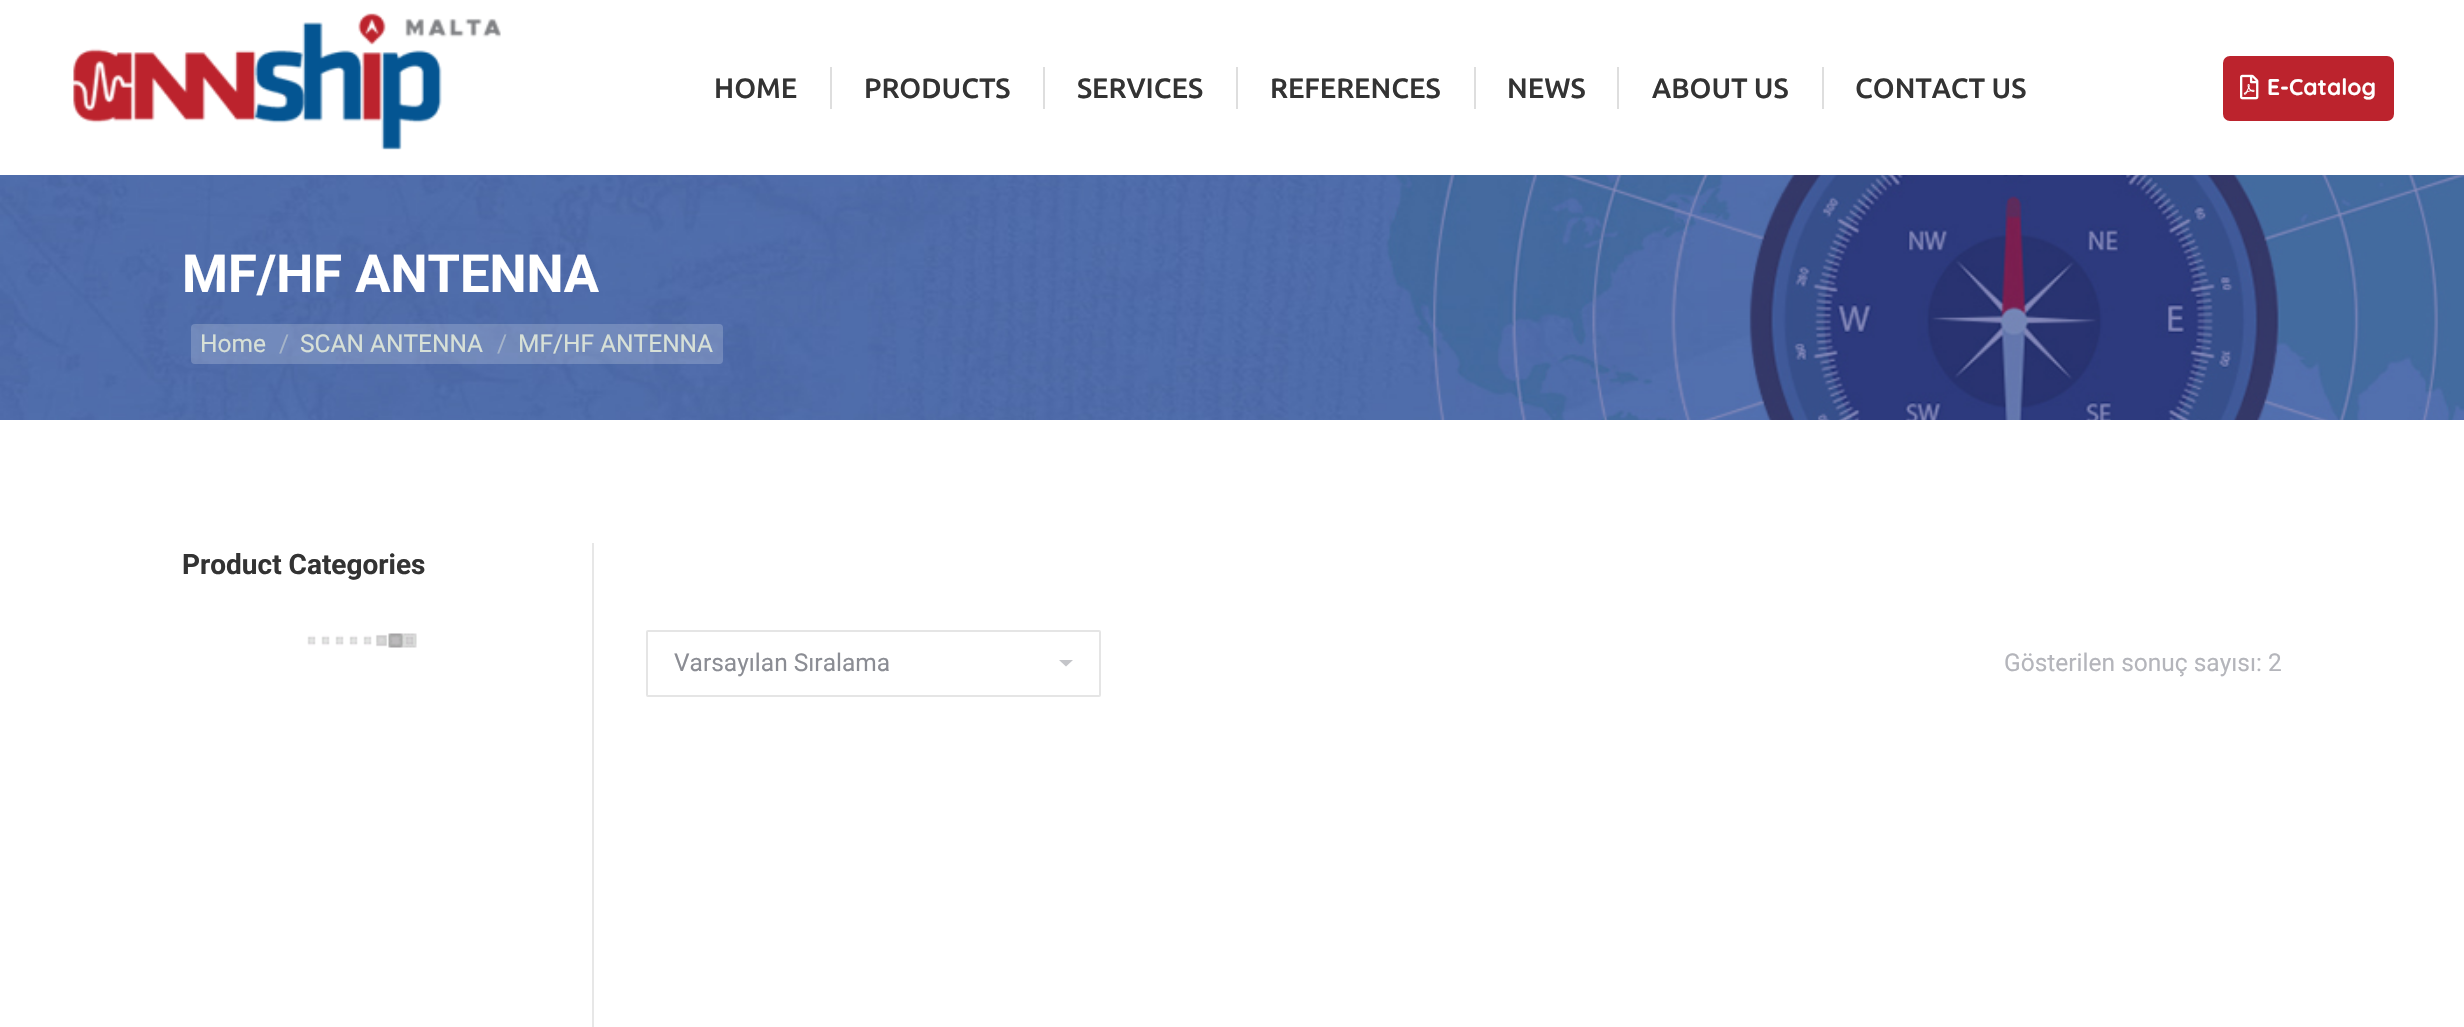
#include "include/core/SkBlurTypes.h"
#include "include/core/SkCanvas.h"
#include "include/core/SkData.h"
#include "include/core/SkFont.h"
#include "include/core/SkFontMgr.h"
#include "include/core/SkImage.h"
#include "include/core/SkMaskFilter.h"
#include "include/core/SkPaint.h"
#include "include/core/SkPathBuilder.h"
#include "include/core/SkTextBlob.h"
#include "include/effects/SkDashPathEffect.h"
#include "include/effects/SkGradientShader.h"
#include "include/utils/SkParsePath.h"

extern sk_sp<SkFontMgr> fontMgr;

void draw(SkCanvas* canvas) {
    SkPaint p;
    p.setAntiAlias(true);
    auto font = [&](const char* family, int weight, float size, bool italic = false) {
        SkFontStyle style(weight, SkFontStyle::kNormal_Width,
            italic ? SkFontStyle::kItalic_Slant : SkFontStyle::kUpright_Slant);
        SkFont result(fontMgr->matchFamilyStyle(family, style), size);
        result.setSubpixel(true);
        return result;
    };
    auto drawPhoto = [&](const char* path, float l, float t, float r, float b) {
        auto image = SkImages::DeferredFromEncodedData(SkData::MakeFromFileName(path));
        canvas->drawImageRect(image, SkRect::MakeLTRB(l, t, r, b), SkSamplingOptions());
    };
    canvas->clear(0xFFFFFFFF);
    drawPhoto("media/1.png", 73, 13, 501, 150);
    auto font1 = font("Ubuntu", 500, 28);
    p.setColor(0xFF333333);
    canvas->drawString("HOME", 714, 98, font1, p);
    p.setColor(0xFFDEDEDE);
    canvas->drawRect(SkRect::MakeLTRB(830, 67, 832, 109), p);
    p.setColor(0xFF333333);
    canvas->drawString("PRODUCTS", 864, 98, font1, p);
    p.setColor(0xFFDEDEDE);
    canvas->drawRect(SkRect::MakeLTRB(1043, 67, 1045, 109), p);
    p.setColor(0xFF333333);
    canvas->drawString("SERVICES", 1077, 98, font1, p);
    p.setColor(0xFFDEDEDE);
    canvas->drawRect(SkRect::MakeLTRB(1236, 67, 1238, 109), p);
    p.setColor(0xFF333333);
    canvas->drawString("REFERENCES", 1270, 98, font1, p);
    p.setColor(0xFFDEDEDE);
    canvas->drawRect(SkRect::MakeLTRB(1474, 67, 1476, 109), p);
    p.setColor(0xFF333333);
    canvas->drawString("NEWS", 1507, 98, font1, p);
    p.setColor(0xFFDEDEDE);
    canvas->drawRect(SkRect::MakeLTRB(1617, 67, 1619, 109), p);
    p.setColor(0xFF333333);
    canvas->drawString("ABOUT US", 1652, 98, font1, p);
    p.setColor(0xFFDEDEDE);
    canvas->drawRect(SkRect::MakeLTRB(1822, 67, 1824, 109), p);
    p.setColor(0xFF333333);
    canvas->drawString("CONTACT US", 1855, 98, font1, p);
    p.setColor(0xFFBC232D);
    canvas->drawRoundRect(SkRect::MakeLTRB(2224, 57, 2393, 120), 6, 6, p);
    p.setStyle(SkPaint::kStroke_Style);
    p.setStrokeWidth(2);
    canvas->drawRoundRect(SkRect::MakeLTRB(2224, 57, 2393, 120), 6, 6, p);
    drawPhoto("media/2.png", 2240, 74, 2259, 100);
    auto font2 = font("Quicksand", 700, 22.75f);
    p.setStyle(SkPaint::kFill_Style);
    p.setColor(0xFFFFFFFF);
    canvas->drawString("E-Catalog", 2267, 95, font2, p);
    drawPhoto("media/3.png", 0, 175, 2464, 420);
    auto font3 = font("Roboto", 700, 52.5f);
    canvas->drawString("MF/HF ANTENNA", 182, 292, font3, p);
    p.setColor(0x33FFFFFF);
    canvas->drawRoundRect(SkRect::MakeLTRB(191, 324, 723, 364), 4, 4, p);
    auto font4 = font("Roboto", 400, 24.5f);
    p.setColor(0xFFD7E0D7);
    canvas->drawString("Home", 200, 352, font4, p);
    p.setColor(0xFFA5B4C9);
    canvas->drawString("/", 279, 352, font4, p);
    p.setColor(0xFFD7E0D7);
    canvas->drawString("SCAN ANTENNA", 300, 352, font4, p);
    p.setColor(0xFFA5B4C9);
    canvas->drawString("/", 497, 352, font4, p);
    p.setColor(0xFFD7E0D7);
    canvas->drawString("MF/HF ANTENNA", 518, 352, font4, p);
    p.setColor(0xFFE7E7E7);
    canvas->drawRect(SkRect::MakeLTRB(592, 543, 594, 1027), p);
    auto font5 = font("Roboto", 700, 28);
    p.setColor(0xFF333333);
    canvas->drawString("Product Categories", 182, 574, font5, p);
    drawPhoto("media/4.png", 307, 633, 417, 648);
    p.setColor(0xFFC4C5C9);
    canvas->drawPath(SkPathBuilder().moveTo(1059, 660).lineTo(1066, 666.5f).lineTo(1073, 660).close().detach(), p);
    p.setStyle(SkPaint::kStroke_Style);
    p.setColor(0xFFE5E5E5);
    canvas->drawRoundRect(SkRect::MakeLTRB(647, 631, 1100, 696), 1, 1, p);
    p.setStyle(SkPaint::kFill_Style);
    p.setColor(0xFF8B8D94);
    canvas->drawString("Varsayılan Sıralama", 674, 671, font4, p);
    p.setColor(0xFFB4B5BB);
    canvas->drawString("Gösterilen sonuç sayısı: 2", 2004, 671, font4, p);
}
